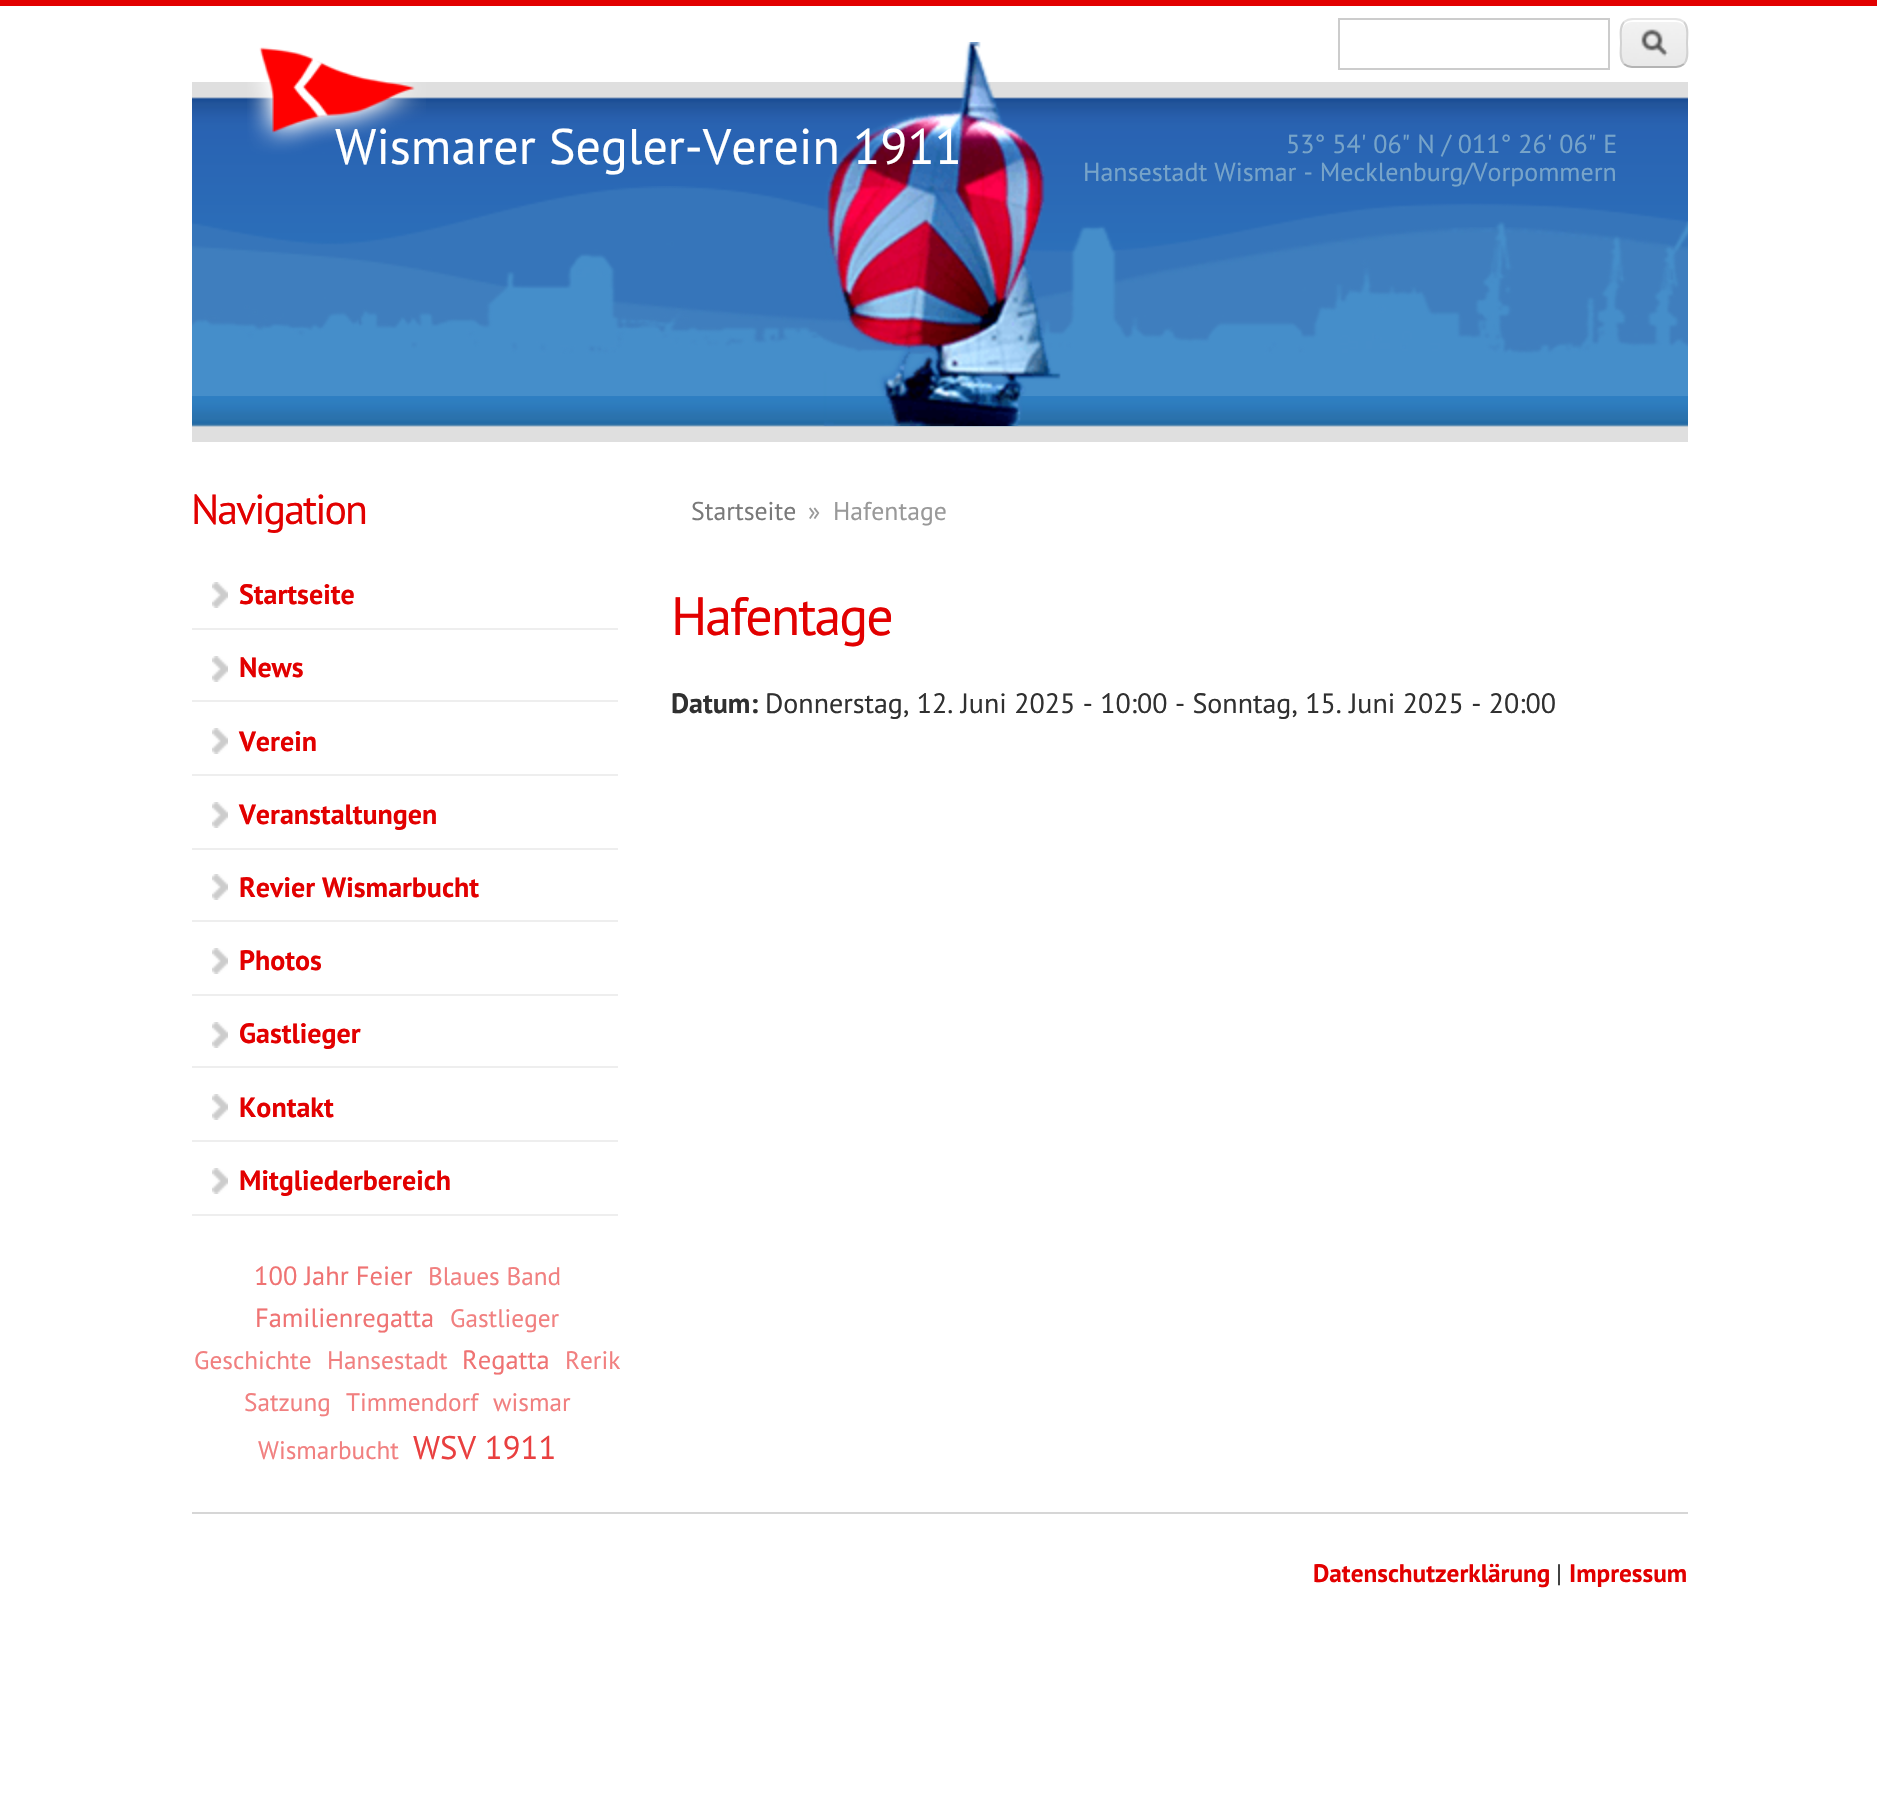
#include "include/core/SkBlurTypes.h"
#include "include/core/SkCanvas.h"
#include "include/core/SkData.h"
#include "include/core/SkFont.h"
#include "include/core/SkFontMgr.h"
#include "include/core/SkImage.h"
#include "include/core/SkMaskFilter.h"
#include "include/core/SkPaint.h"
#include "include/core/SkPathBuilder.h"
#include "include/core/SkTextBlob.h"
#include "include/effects/SkDashPathEffect.h"
#include "include/effects/SkGradientShader.h"
#include "include/utils/SkParsePath.h"

extern sk_sp<SkFontMgr> fontMgr;

void draw(SkCanvas* canvas) {
    SkPaint p;
    p.setAntiAlias(true);
    auto font = [&](const char* family, int weight, float size, bool italic = false) {
        SkFontStyle style(weight, SkFontStyle::kNormal_Width,
            italic ? SkFontStyle::kItalic_Slant : SkFontStyle::kUpright_Slant);
        SkFont result(fontMgr->matchFamilyStyle(family, style), size);
        result.setSubpixel(true);
        return result;
    };
    auto drawTracked = [&](const char* s, float x, float y, const SkFont& font, const SkPaint& ink, float letter, float word) {
        std::vector<SkGlyphID> glyphs(font.countText(s, strlen(s), SkTextEncoding::kUTF8));
        std::vector<float> xs(glyphs.size());
        font.textToGlyphs(s, strlen(s), SkTextEncoding::kUTF8, glyphs);
        font.getXPos(glyphs, xs, x);
        float extra = 0;
        for (size_t i = 0; i < glyphs.size(); i++) {
            xs[i] += extra;
            extra += letter + word * (glyphs[i] == font.unicharToGlyph(' '));
        }
        canvas->drawTextBlob(SkTextBlob::MakeFromPosHGlyphs(glyphs, xs, y, font), 0, 0, ink);
    };
    auto drawPhoto = [&](const char* path, float l, float t, float r, float b) {
        auto image = SkImages::DeferredFromEncodedData(SkData::MakeFromFileName(path));
        canvas->drawImageRect(image, SkRect::MakeLTRB(l, t, r, b), SkSamplingOptions());
    };
    canvas->clear(0xFFFFFFFF);
    p.setColor(0xFFE20000);
    canvas->drawRect(SkRect::MakeLTRB(0, 0, 1877, 6), p);
    drawPhoto("media/1.png", 192, 82, 1688, 442);
    drawPhoto("media/5.png", 192, 186, 1688, 357);
    drawPhoto("media/7.png", 192, 227, 1688, 357);
    drawPhoto("media/6.png", 192, 221, 1688, 396);
    drawPhoto("media/2.png", 823, 42, 1061, 426);
    drawPhoto("media/3.png", 247, 47, 426, 155);
    p.setStyle(SkPaint::kStroke_Style);
    p.setStrokeWidth(2);
    p.setColor(0xFFCCCCCC);
    canvas->drawRect(SkRect::MakeLTRB(1339, 19, 1609, 69), p);
    drawPhoto("media/4.png", 1620, 20, 1688, 68);
    p.setStyle(SkPaint::kFill_Style);
    p.setColor(0xFFFFFFFF);
    canvas->drawPath(SkPathBuilder().moveTo(1632, 22).lineTo(1676, 22).cubicTo(1682, 22, 1686, 26, 1686, 32).cubicTo(1686, 20, 1679, 20, 1669, 20).lineTo(1639, 20).cubicTo(1629, 20, 1622, 20, 1622, 32).cubicTo(1622, 26, 1626, 22, 1632, 22).close().detach(), p);
    p.setStyle(SkPaint::kStroke_Style);
    p.setColor(0xFFE4E4E4);
    canvas->drawPath(SkPathBuilder().moveTo(1624, 22).cubicTo(1626.5f, 20, 1629, 19, 1632, 19).lineTo(1676, 19).cubicTo(1679, 19, 1681.5f, 20, 1684, 22).detach(), p);
    p.setColor(0xFFD2D2D2);
    canvas->drawPath(SkPathBuilder().moveTo(1684, 22).cubicTo(1689, 27.5f, 1687, 36.5f, 1687, 43).cubicTo(1687, 49.5f, 1689, 58.5f, 1684, 64).detach(), p);
    p.setColor(0xFFB4B4B4);
    canvas->drawPath(SkPathBuilder().moveTo(1684, 64).cubicTo(1681.5f, 66, 1679, 67, 1676, 67).lineTo(1632, 67).cubicTo(1629, 67, 1626.5f, 66, 1624, 64).detach(), p);
    p.setColor(0xFFD2D2D2);
    canvas->drawPath(SkPathBuilder().moveTo(1624, 64).cubicTo(1619, 58.5f, 1621, 49.5f, 1621, 43).cubicTo(1621, 36.5f, 1619, 27.5f, 1624, 22).detach(), p);
    auto font1 = font("PT Sans", 400, 50);
    p.setStyle(SkPaint::kFill_Style);
    p.setColor(0xFFFFFFFF);
    canvas->drawString("Wismarer Segler-Verein 1911", 335, 164, font1, p);
    auto font2 = font("PT Sans", 400, 26);
    p.setColor(0xFF77A4C9);
    canvas->drawString("53° 54' 06\" N / 011° 26' 06\" E", 1286, 153, font2, p);
    canvas->drawString("Hansestadt Wismar - Mecklenburg/Vorpommern", 1083, 181, font2, p);
    auto font3 = font("PT Sans", 400, 42);
    p.setColor(0xFFE20000);
    drawTracked("Navigation", 191, 524, font3, p, -2, 0);
    drawPhoto("media/8.png", 212, 582, 228, 608);
    p.setColor(0xFFEEEEEE);
    canvas->drawRect(SkRect::MakeLTRB(192, 628, 618, 630), p);
    auto font4 = font("PT Sans", 700, 28);
    p.setColor(0xFFE20000);
    canvas->drawString("Startseite", 239, 604, font4, p);
    drawPhoto("media/8.png", 212, 656, 228, 682);
    p.setColor(0xFFEEEEEE);
    canvas->drawRect(SkRect::MakeLTRB(192, 700, 618, 702), p);
    p.setColor(0xFFE20000);
    canvas->drawString("News", 239, 677, font4, p);
    drawPhoto("media/8.png", 212, 728, 228, 754);
    p.setColor(0xFFEEEEEE);
    canvas->drawRect(SkRect::MakeLTRB(192, 774, 618, 776), p);
    p.setColor(0xFFE20000);
    canvas->drawString("Verein", 239, 751, font4, p);
    drawPhoto("media/8.png", 212, 802, 228, 828);
    p.setColor(0xFFEEEEEE);
    canvas->drawRect(SkRect::MakeLTRB(192, 848, 618, 850), p);
    p.setColor(0xFFE20000);
    canvas->drawString("Veranstaltungen", 239, 824, font4, p);
    drawPhoto("media/8.png", 212, 874, 228, 900);
    p.setColor(0xFFEEEEEE);
    canvas->drawRect(SkRect::MakeLTRB(192, 920, 618, 922), p);
    p.setColor(0xFFE20000);
    canvas->drawString("Revier Wismarbucht", 239, 897, font4, p);
    drawPhoto("media/8.png", 212, 948, 228, 974);
    p.setColor(0xFFEEEEEE);
    canvas->drawRect(SkRect::MakeLTRB(192, 994, 618, 996), p);
    p.setColor(0xFFE20000);
    canvas->drawString("Photos", 239, 970, font4, p);
    drawPhoto("media/8.png", 212, 1022, 228, 1048);
    p.setColor(0xFFEEEEEE);
    canvas->drawRect(SkRect::MakeLTRB(192, 1066, 618, 1068), p);
    p.setColor(0xFFE20000);
    canvas->drawString("Gastlieger", 239, 1043, font4, p);
    drawPhoto("media/8.png", 212, 1094, 228, 1120);
    p.setColor(0xFFEEEEEE);
    canvas->drawRect(SkRect::MakeLTRB(192, 1140, 618, 1142), p);
    p.setColor(0xFFE20000);
    canvas->drawString("Kontakt", 239, 1117, font4, p);
    drawPhoto("media/8.png", 212, 1168, 228, 1194);
    p.setColor(0xFFEEEEEE);
    canvas->drawRect(SkRect::MakeLTRB(192, 1214, 618, 1216), p);
    p.setColor(0xFFE20000);
    canvas->drawString("Mitgliederbereich", 239, 1190, font4, p);
    auto font5 = font("PT Sans", 400, 26.5f);
    p.setColor(0xFFEF7373);
    canvas->drawString("100 Jahr Feier", 254, 1285, font5, p);
    auto font6 = font("PT Sans", 400, 25.25f);
    p.setColor(0xFFF18080);
    canvas->drawString("Blaues Band", 428, 1285, font6, p);
    p.setColor(0xFFEF7373);
    canvas->drawString("Familienregatta", 255, 1327, font5, p);
    p.setColor(0xFFF18080);
    {
        const struct { const char* s; float x, y; } items[] = {
            {"Gastlieger", 450, 1327},
            {"Geschichte", 194, 1369},
            {"Hansestadt", 327, 1369},
        };
        for (auto [s, x, y] : items) {
            canvas->drawString(s, x, y, font6, p);
        }
    }
    p.setColor(0xFFEF7373);
    canvas->drawString("Regatta", 462, 1369, font5, p);
    p.setColor(0xFFF18080);
    {
        const struct { const char* s; float x, y; } items[] = {
            {"Rerik", 565, 1369},
            {"Satzung", 244, 1411},
            {"Timmendorf", 346, 1411},
            {"wismar", 493, 1411},
            {"Wismarbucht", 258, 1459},
        };
        for (auto [s, x, y] : items) {
            canvas->drawString(s, x, y, font6, p);
        }
    }
    auto font7 = font("PT Sans", 400, 32.75f);
    p.setColor(0xFFE94040);
    canvas->drawString("WSV 1911", 413, 1459, font7, p);
    auto font8 = font("PT Sans", 400, 25.75f);
    p.setColor(0xFF797979);
    canvas->drawString("Startseite", 691, 520, font8, p);
    p.setColor(0xFF999999);
    canvas->drawString("»", 808, 520, font8, p);
    canvas->drawString("Hafentage", 833, 520, font8, p);
    auto font9 = font("PT Sans", 400, 54);
    p.setColor(0xFFE20000);
    drawTracked("Hafentage", 671, 635, font9, p, -2, 0);
    p.setColor(0xFF303030);
    canvas->drawString("Datum:", 671, 713, font4, p);
    auto font10 = font("PT Sans", 400, 28);
    canvas->drawString("Donnerstag, 12. Juni 2025 - 10:00 - Sonntag, 15. Juni 2025 - 20:00", 765, 713, font10, p);
    p.setColor(0xFFD6D6D6);
    canvas->drawRect(SkRect::MakeLTRB(192, 1512, 1688, 1514), p);
    auto font11 = font("PT Sans", 700, 25.25f);
    p.setColor(0xFFE20000);
    canvas->drawString("Datenschutzerklärung", 1313, 1582, font11, p);
    p.setColor(0xFF303030);
    canvas->drawString("|", 1556, 1582, font6, p);
    p.setColor(0xFFE20000);
    canvas->drawString("Impressum", 1569, 1582, font11, p);
}
